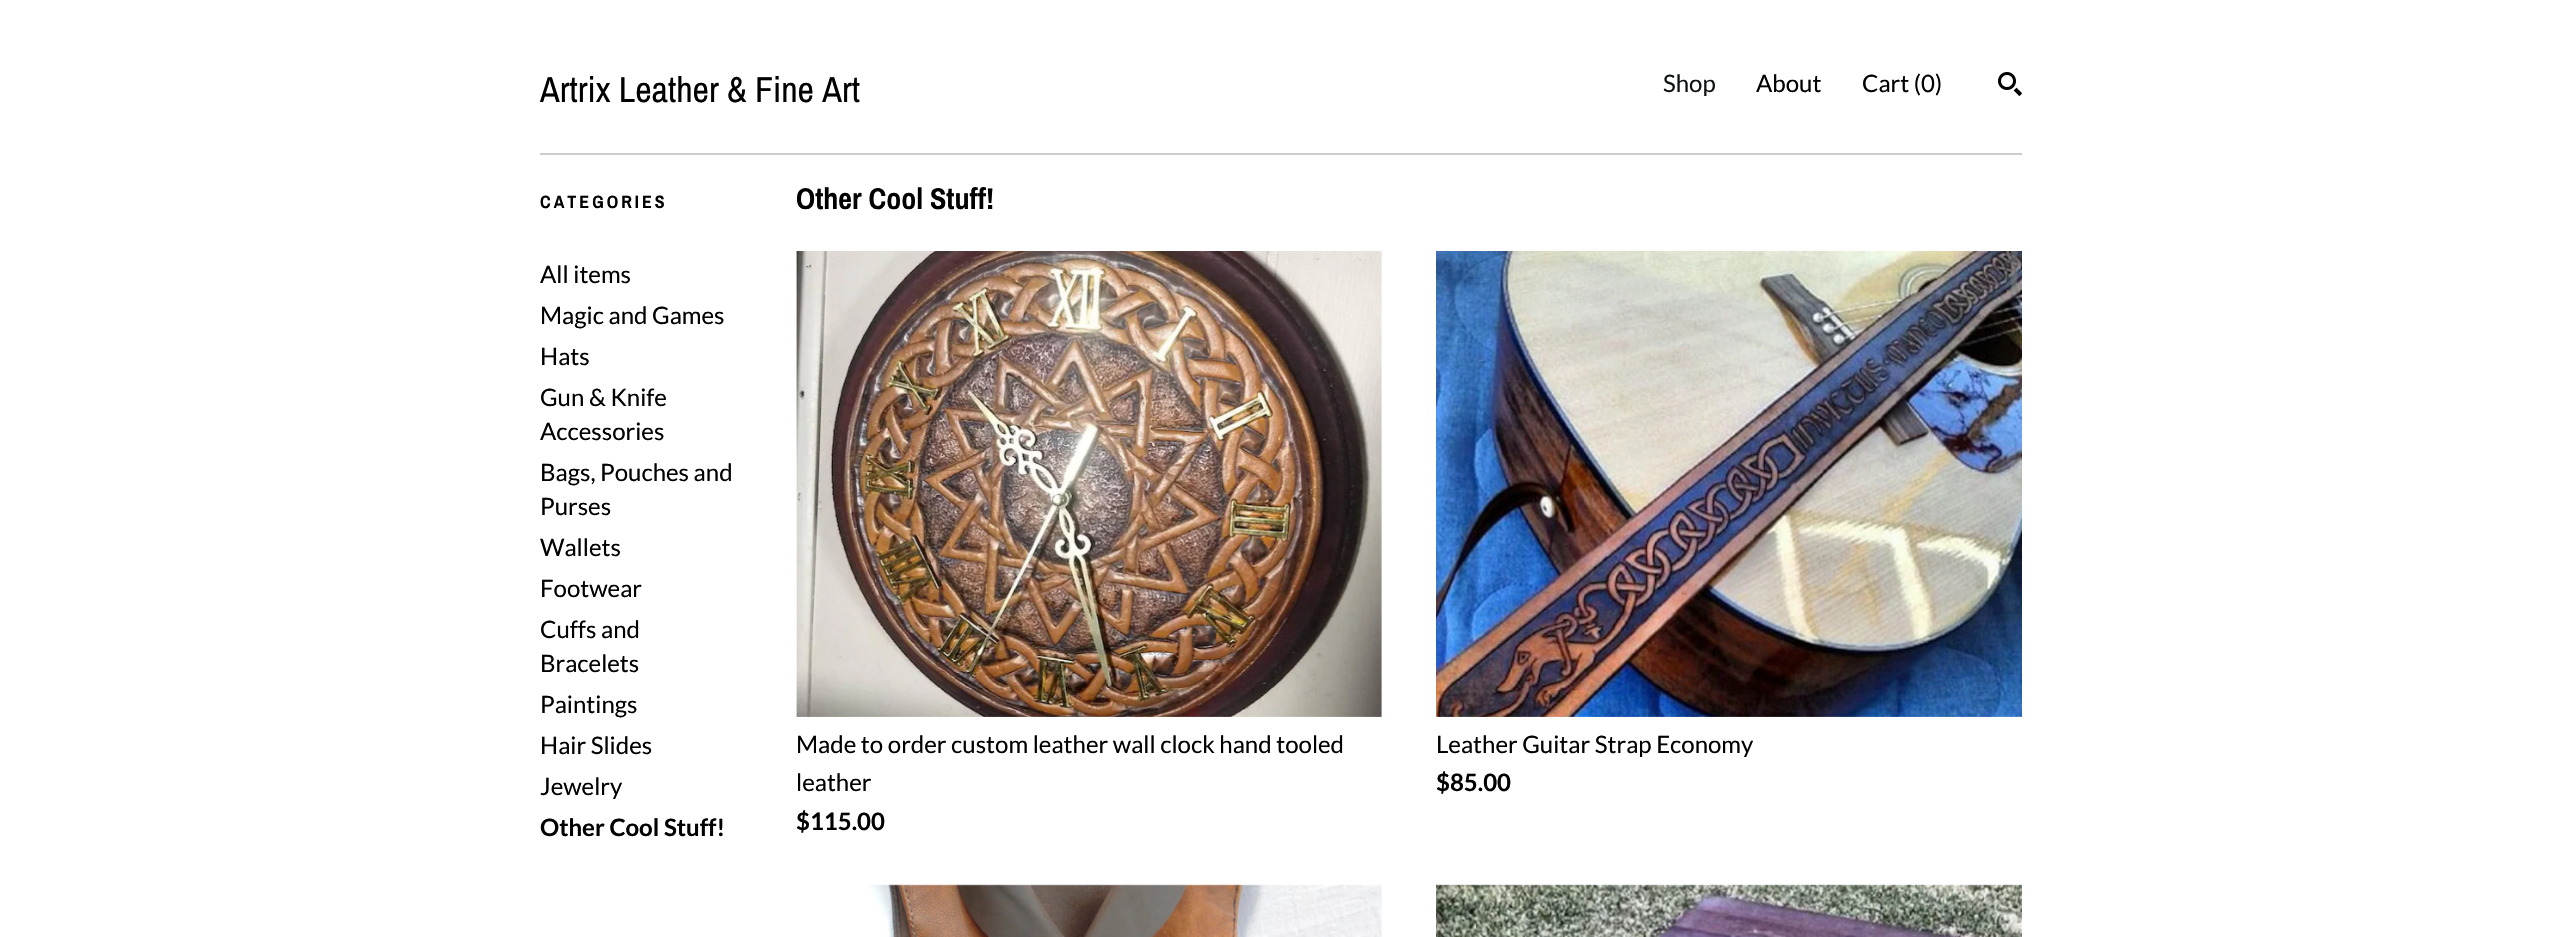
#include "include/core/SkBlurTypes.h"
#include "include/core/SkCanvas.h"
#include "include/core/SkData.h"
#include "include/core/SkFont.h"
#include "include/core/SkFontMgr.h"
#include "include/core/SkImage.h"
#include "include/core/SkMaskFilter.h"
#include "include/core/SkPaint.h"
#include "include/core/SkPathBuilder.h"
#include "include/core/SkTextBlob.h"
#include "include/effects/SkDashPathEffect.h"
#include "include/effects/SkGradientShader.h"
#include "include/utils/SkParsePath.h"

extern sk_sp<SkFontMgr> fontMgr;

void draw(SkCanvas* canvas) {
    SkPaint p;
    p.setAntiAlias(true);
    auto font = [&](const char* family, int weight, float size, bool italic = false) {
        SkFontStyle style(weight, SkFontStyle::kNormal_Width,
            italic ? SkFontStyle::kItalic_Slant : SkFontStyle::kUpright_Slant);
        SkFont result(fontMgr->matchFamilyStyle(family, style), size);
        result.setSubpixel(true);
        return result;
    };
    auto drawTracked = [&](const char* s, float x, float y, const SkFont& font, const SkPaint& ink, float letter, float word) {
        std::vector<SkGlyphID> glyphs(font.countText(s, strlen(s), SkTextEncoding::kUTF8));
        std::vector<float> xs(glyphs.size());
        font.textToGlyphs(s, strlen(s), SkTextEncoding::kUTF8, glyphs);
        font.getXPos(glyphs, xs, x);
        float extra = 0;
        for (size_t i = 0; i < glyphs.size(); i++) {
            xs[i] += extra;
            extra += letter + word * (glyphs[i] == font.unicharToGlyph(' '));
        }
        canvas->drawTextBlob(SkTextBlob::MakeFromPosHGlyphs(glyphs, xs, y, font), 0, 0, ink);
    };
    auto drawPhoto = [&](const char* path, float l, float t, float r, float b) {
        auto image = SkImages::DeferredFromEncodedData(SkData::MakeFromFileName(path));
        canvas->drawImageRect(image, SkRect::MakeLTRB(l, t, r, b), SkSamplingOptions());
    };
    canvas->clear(0xFFFFFFFF);
    auto font1 = font("Archivo Narrow", 400, 36);
    p.setColor(0xFF000000);
    canvas->drawString("Artrix Leather & Fine Art", 540, 102, font1, p);
    auto font2 = font("Lato", 400, 24);
    p.setColor(0xFF0F1217);
    canvas->drawString("Shop", 1663, 92, font2, p);
    p.setColor(0xFF000000);
    canvas->drawString("About", 1756, 92, font2, p);
    canvas->drawString("Cart (0)", 1862, 92, font2, p);
    drawPhoto("media/1.png", 1998, 72, 2022, 96);
    p.setColor(0xFFCCCCCC);
    canvas->drawRect(SkRect::MakeLTRB(540, 153, 2022, 155), p);
    auto font3 = font("Archivo Narrow", 700, 18);
    p.setColor(0xFF000000);
    drawTracked("CATEGORIES", 540, 208, font3, p, 3, 0);
    {
        const struct { const char* s; float x, y; } items[] = {
            {"All items", 540, 283},
            {"Magic and Games", 540, 324},
            {"Hats", 540, 365},
            {"Gun & Knife", 540, 406},
            {"Accessories", 540, 440},
            {"Bags, Pouches and", 540, 481},
            {"Purses", 540, 515},
            {"Wallets", 540, 556},
            {"Footwear", 540, 597},
            {"Cuffs and", 540, 638},
            {"Bracelets", 540, 672},
            {"Paintings", 540, 713},
            {"Hair Slides", 540, 754},
            {"Jewelry", 540, 795},
        };
        for (auto [s, x, y] : items) {
            canvas->drawString(s, x, y, font2, p);
        }
    }
    auto font4 = font("Lato", 700, 24);
    canvas->drawString("Other Cool Stuff!", 540, 836, font4, p);
    auto font5 = font("Archivo Narrow", 700, 30);
    canvas->drawString("Other Cool Stuff!", 796, 209, font5, p);
    drawPhoto("media/2.png", 796, 251, 1382, 717);
    canvas->drawString("Made to order custom leather wall clock hand tooled", 796, 753, font2, p);
    canvas->drawString("leather", 796, 791, font2, p);
    canvas->drawString("$115.00", 796, 830, font4, p);
    drawPhoto("media/3.png", 1436, 251, 2022, 717);
    canvas->drawString("Leather Guitar Strap Economy", 1436, 753, font2, p);
    canvas->drawString("$85.00", 1436, 791, font4, p);
    drawPhoto("media/4.png", 867, 884, 1382, 937);
    drawPhoto("media/5.png", 1436, 884, 2022, 937);
}
